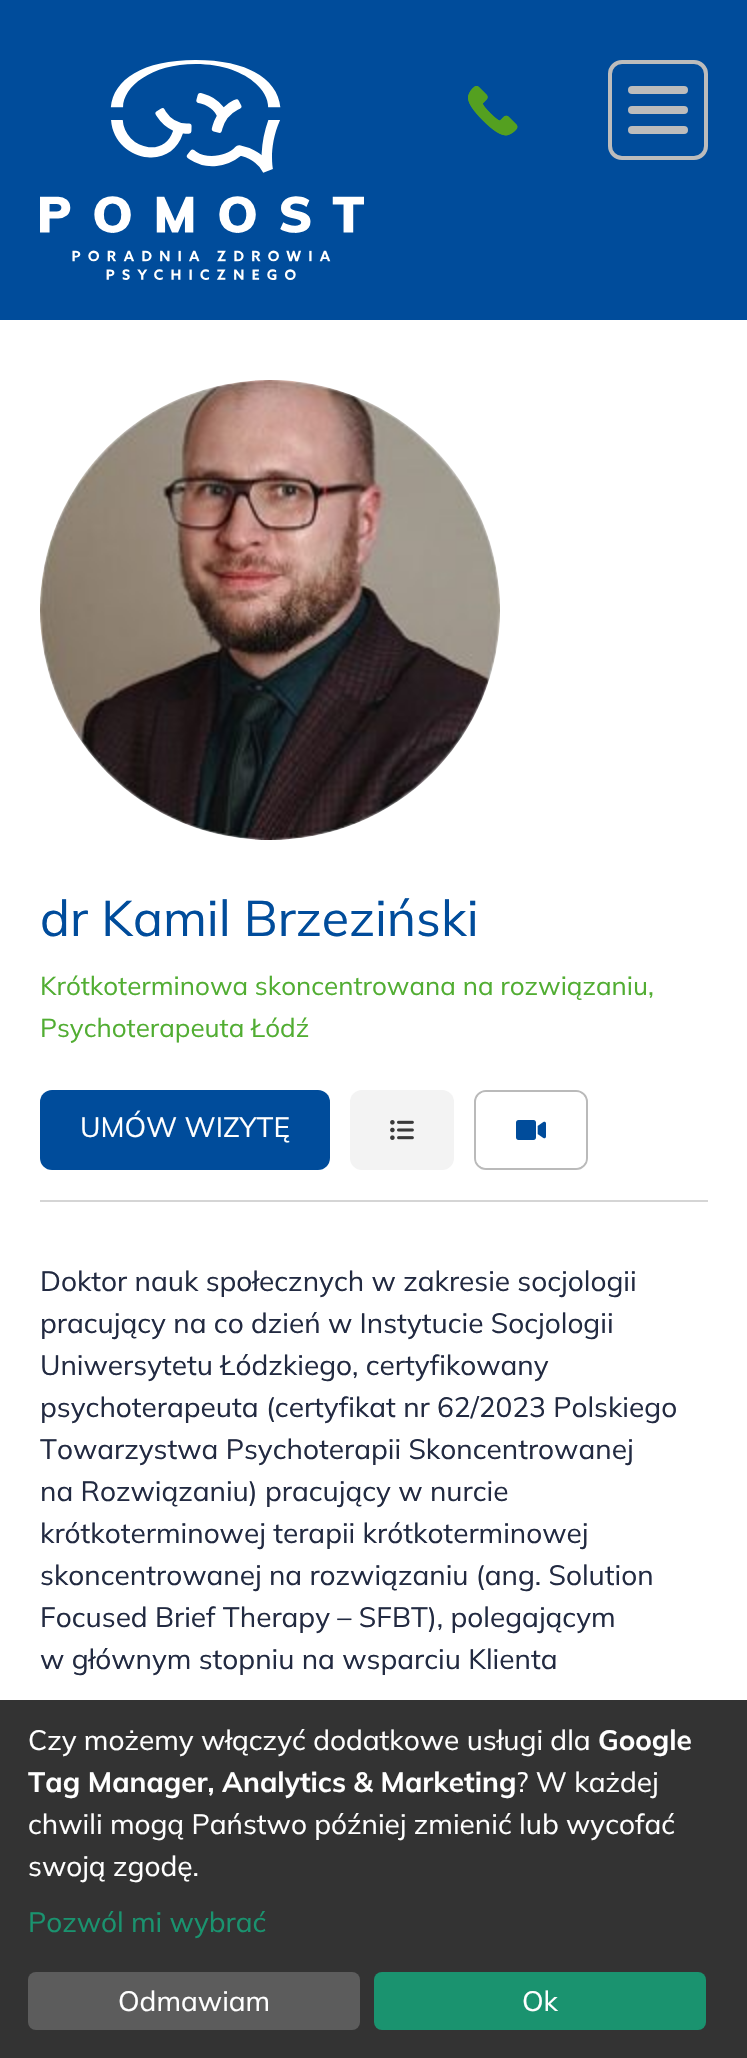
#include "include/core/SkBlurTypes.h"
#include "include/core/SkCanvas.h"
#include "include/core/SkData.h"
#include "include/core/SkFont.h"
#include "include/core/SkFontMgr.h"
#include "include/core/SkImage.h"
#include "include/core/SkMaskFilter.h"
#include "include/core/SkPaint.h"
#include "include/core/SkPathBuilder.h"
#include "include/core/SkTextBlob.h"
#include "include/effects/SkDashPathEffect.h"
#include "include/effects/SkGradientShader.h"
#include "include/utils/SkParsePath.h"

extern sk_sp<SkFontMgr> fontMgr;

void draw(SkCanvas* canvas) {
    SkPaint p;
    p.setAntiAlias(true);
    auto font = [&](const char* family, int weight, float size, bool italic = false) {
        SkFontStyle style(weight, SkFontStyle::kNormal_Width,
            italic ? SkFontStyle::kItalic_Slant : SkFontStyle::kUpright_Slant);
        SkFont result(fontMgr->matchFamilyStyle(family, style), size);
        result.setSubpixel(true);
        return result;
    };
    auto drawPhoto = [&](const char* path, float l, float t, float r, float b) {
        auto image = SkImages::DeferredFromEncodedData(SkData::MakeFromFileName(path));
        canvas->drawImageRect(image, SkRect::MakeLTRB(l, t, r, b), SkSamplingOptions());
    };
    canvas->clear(0xFFFFFFFF);
    p.setColor(0xFF004C9B);
    canvas->drawRect(SkRect::MakeLTRB(0, 0, 747, 320), p);
    drawPhoto("media/1.png", 40, 60, 364, 280);
    drawPhoto("media/2.png", 468, 86, 518, 136);
    p.setStyle(SkPaint::kStroke_Style);
    p.setStrokeWidth(4);
    p.setColor(0xFFBCBCBC);
    canvas->drawRoundRect(SkRect::MakeLTRB(610, 62, 706, 158), 12, 12, p);
    p.setStyle(SkPaint::kFill_Style);
    canvas->drawRoundRect(SkRect::MakeLTRB(628, 86, 688, 94), 4, 4, p);
    canvas->drawRoundRect(SkRect::MakeLTRB(628, 106, 688, 114), 4, 4, p);
    canvas->drawRoundRect(SkRect::MakeLTRB(628, 126, 688, 134), 4, 4, p);
    drawPhoto("media/3.png", 40, 380, 500, 840);
    auto font1 = font("Mulish", 200, 50);
    p.setColor(0xFF004C9B);
    canvas->drawString("dr Kamil Brzeziński", 40, 936, font1, p);
    auto font2 = font("Mulish", 200, 26);
    p.setColor(0xFF51AD32);
    canvas->drawString("Krótkoterminowa skoncentrowana na rozwiązaniu,", 40, 995, font2, p);
    canvas->drawString("Psychoterapeuta Łódź", 40, 1037, font2, p);
    p.setColor(0xFFD5D5D5);
    canvas->drawRect(SkRect::MakeLTRB(40, 1200, 708, 1202), p);
    p.setColor(0xFF004C9B);
    canvas->drawRoundRect(SkRect::MakeLTRB(40, 1090, 330, 1170), 12, 12, p);
    auto font3 = font("Mulish", 200, 28);
    p.setColor(0xFFFFFFFF);
    canvas->drawString("UMÓW WIZYTĘ", 80, 1137, font3, p);
    p.setColor(0xFFF3F3F3);
    canvas->drawRoundRect(SkRect::MakeLTRB(350, 1090, 454, 1170), 12, 12, p);
    drawPhoto("media/4.png", 390, 1120, 414, 1140);
    p.setStyle(SkPaint::kStroke_Style);
    p.setStrokeWidth(2);
    p.setColor(0xFFBABABA);
    canvas->drawRoundRect(SkRect::MakeLTRB(475, 1091, 587, 1169), 11, 11, p);
    p.setStyle(SkPaint::kFill_Style);
    p.setColor(0xFFFFFFFF);
    canvas->drawRoundRect(SkRect::MakeLTRB(476, 1092, 586, 1168), 10, 10, p);
    drawPhoto("media/5.png", 516, 1120, 546, 1140);
    p.setColor(0xFF222A41);
    {
        const struct { const char* s; float x, y; } items[] = {
            {"Doktor nauk społecznych w zakresie socjologii", 40, 1291},
            {"pracujący na co dzień w Instytucie Socjologii", 40, 1333},
            {"Uniwersytetu Łódzkiego, certyfikowany", 40, 1375},
            {"psychoterapeuta (certyfikat nr 62/2023 Polskiego", 40, 1417},
            {"Towarzystwa Psychoterapii Skoncentrowanej", 40, 1459},
            {"na Rozwiązaniu) pracujący w nurcie", 40, 1501},
            {"krótkoterminowej terapii krótkoterminowej", 40, 1543},
            {"skoncentrowanej na rozwiązaniu (ang. Solution", 40, 1585},
            {"Focused Brief Therapy – SFBT), polegającym", 40, 1627},
            {"w głównym stopniu na wsparciu Klienta", 40, 1669},
        };
        for (auto [s, x, y] : items) {
            canvas->drawString(s, x, y, font3, p);
        }
    }
    p.setColor(0xFF333333);
    canvas->drawRect(SkRect::MakeLTRB(0, 1700, 747, 2058), p);
    p.setColor(0xFFFFFFFF);
    canvas->drawString("Czy możemy włączyć dodatkowe usługi dla", 28, 1750, font3, p);
    auto font4 = font("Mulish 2", 200, 28);
    canvas->drawString("Google", 598, 1750, font4, p);
    canvas->drawString("Tag Manager, Analytics & Marketing", 28, 1792, font4, p);
    {
        const struct { const char* s; float x, y; } items[] = {
            {"? W każdej", 516, 1792},
            {"chwili mogą Państwo później zmienić lub wycofać", 28, 1834},
            {"swoją zgodę.", 28, 1876},
        };
        for (auto [s, x, y] : items) {
            canvas->drawString(s, x, y, font3, p);
        }
    }
    p.setColor(0xFF1A936F);
    canvas->drawString("Pozwól mi wybrać", 28, 1932, font3, p);
    p.setColor(0xFF5C5C5C);
    canvas->drawRoundRect(SkRect::MakeLTRB(28, 1972, 360, 2030), 8, 8, p);
    p.setColor(0xFFFFFFFF);
    canvas->drawString("Odmawiam", 118, 2011, font3, p);
    p.setColor(0xFF1A936F);
    canvas->drawRoundRect(SkRect::MakeLTRB(374, 1972, 706, 2030), 8, 8, p);
    p.setColor(0xFFFFFFFF);
    canvas->drawString("Ok", 522, 2011, font3, p);
}
